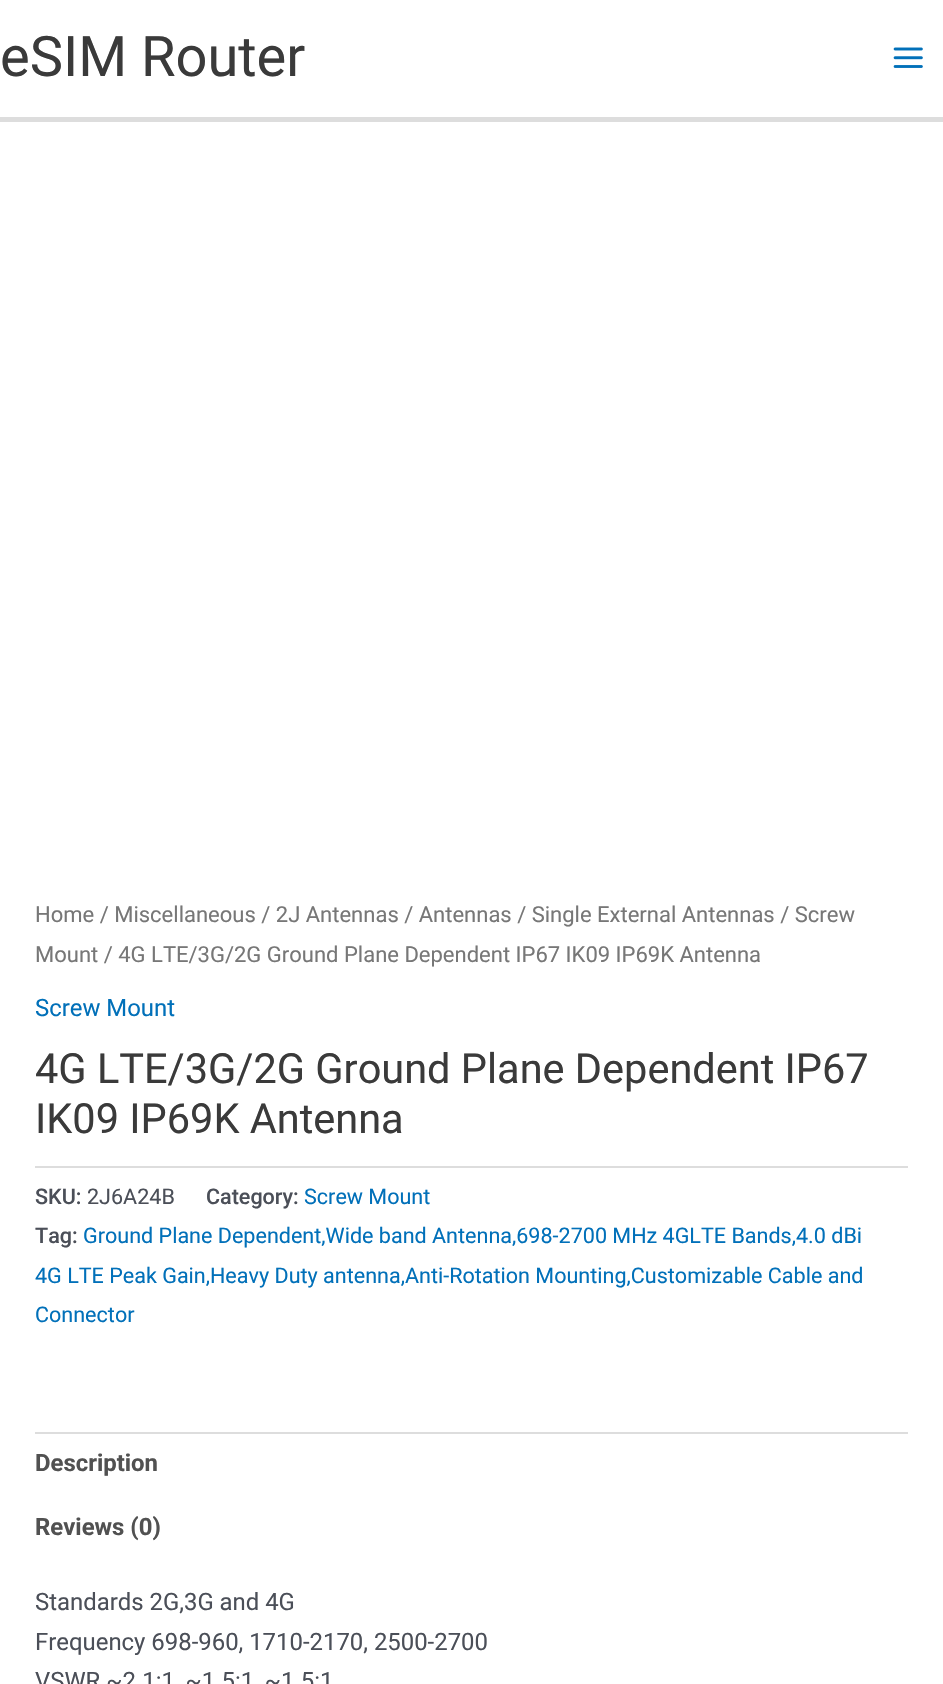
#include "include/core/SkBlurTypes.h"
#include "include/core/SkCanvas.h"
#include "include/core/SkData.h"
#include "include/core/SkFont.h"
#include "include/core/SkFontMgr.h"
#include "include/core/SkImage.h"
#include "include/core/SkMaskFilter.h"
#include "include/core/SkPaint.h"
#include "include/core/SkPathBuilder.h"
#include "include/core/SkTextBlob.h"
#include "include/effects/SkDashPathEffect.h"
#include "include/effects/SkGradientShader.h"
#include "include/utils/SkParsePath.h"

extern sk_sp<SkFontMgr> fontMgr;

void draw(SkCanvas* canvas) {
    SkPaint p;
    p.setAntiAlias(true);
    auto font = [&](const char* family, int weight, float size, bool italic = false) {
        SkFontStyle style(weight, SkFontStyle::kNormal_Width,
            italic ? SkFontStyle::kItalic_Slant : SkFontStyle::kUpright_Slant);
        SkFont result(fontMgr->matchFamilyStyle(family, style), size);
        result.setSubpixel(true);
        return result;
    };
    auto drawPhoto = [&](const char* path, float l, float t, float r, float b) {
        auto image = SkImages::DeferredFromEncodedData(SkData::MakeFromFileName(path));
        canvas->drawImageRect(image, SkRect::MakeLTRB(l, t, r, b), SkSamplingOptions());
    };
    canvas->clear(0xFFFFFFFF);
    p.setColor(0xFFDDDDDD);
    canvas->drawRect(SkRect::MakeLTRB(0, 117, 943, 122), p);
    auto font1 = font("Roboto", 400, 56);
    p.setColor(0xFF3A3A3A);
    canvas->drawString("eSIM Router", 0, 76, font1, p);
    drawPhoto("media/1.png", 893, 47, 923, 68);
    auto font2 = font("Roboto", 400, 22);
    p.setColor(0xFF777777);
    canvas->drawString("Home / Miscellaneous / 2J Antennas / Antennas / Single External Antennas / Screw", 35, 922, font2, p);
    canvas->drawString("Mount / 4G LTE/3G/2G Ground Plane Dependent IP67 IK09 IP69K Antenna", 35, 962, font2, p);
    auto font3 = font("Roboto", 400, 23.9f);
    p.setColor(0xFF0170B9);
    canvas->drawString("Screw Mount", 35, 1016, font3, p);
    auto font4 = font("Roboto", 400, 41.5f);
    p.setColor(0xFF3A3A3A);
    canvas->drawString("4G LTE/3G/2G Ground Plane Dependent IP67", 35, 1083, font4, p);
    canvas->drawString("IK09 IP69K Antenna", 35, 1133, font4, p);
    p.setColor(0xFFDDDDDD);
    canvas->drawRect(SkRect::MakeLTRB(35, 1166, 908, 1168), p);
    auto font5 = font("Roboto", 500, 21.55f);
    p.setColor(0xFF4B4F58);
    canvas->drawString("SKU:", 35, 1204, font5, p);
    auto font6 = font("Roboto", 400, 21.55f);
    canvas->drawString("2J6A24B", 87, 1204, font6, p);
    canvas->drawString("Category:", 206, 1204, font5, p);
    p.setColor(0xFF0170B9);
    canvas->drawString("Screw Mount", 304, 1204, font6, p);
    p.setColor(0xFF4B4F58);
    canvas->drawString("Tag:", 35, 1243, font5, p);
    p.setColor(0xFF0170B9);
    {
        const struct { const char* s; float x, y; } items[] = {
            {"Ground Plane Dependent,Wide band Antenna,698-2700 MHz 4GLTE Bands,4.0 dBi", 83, 1243},
            {"4G LTE Peak Gain,Heavy Duty antenna,Anti-Rotation Mounting,Customizable Cable and", 35, 1283},
            {"Connector", 35, 1322},
        };
        for (auto [s, x, y] : items) {
            canvas->drawString(s, x, y, font6, p);
        }
    }
    p.setColor(0xFFDDDDDD);
    canvas->drawRect(SkRect::MakeLTRB(35, 1432, 908, 1434), p);
    auto font7 = font("Roboto", 700, 23.9f);
    p.setColor(0xFF515151);
    canvas->drawString("Description", 35, 1471, font7, p);
    canvas->drawString("Reviews (0)", 35, 1535, font7, p);
    p.setColor(0xFF4B4F58);
    {
        const struct { const char* s; float x, y; } items[] = {
            {"Standards 2G,3G and 4G", 35, 1610},
            {"Frequency 698-960, 1710-2170, 2500-2700", 35, 1650},
            {"VSWR ~2.1:1, ~1.5:1, ~1.5:1", 35, 1689},
        };
        for (auto [s, x, y] : items) {
            canvas->drawString(s, x, y, font3, p);
        }
    }
}
